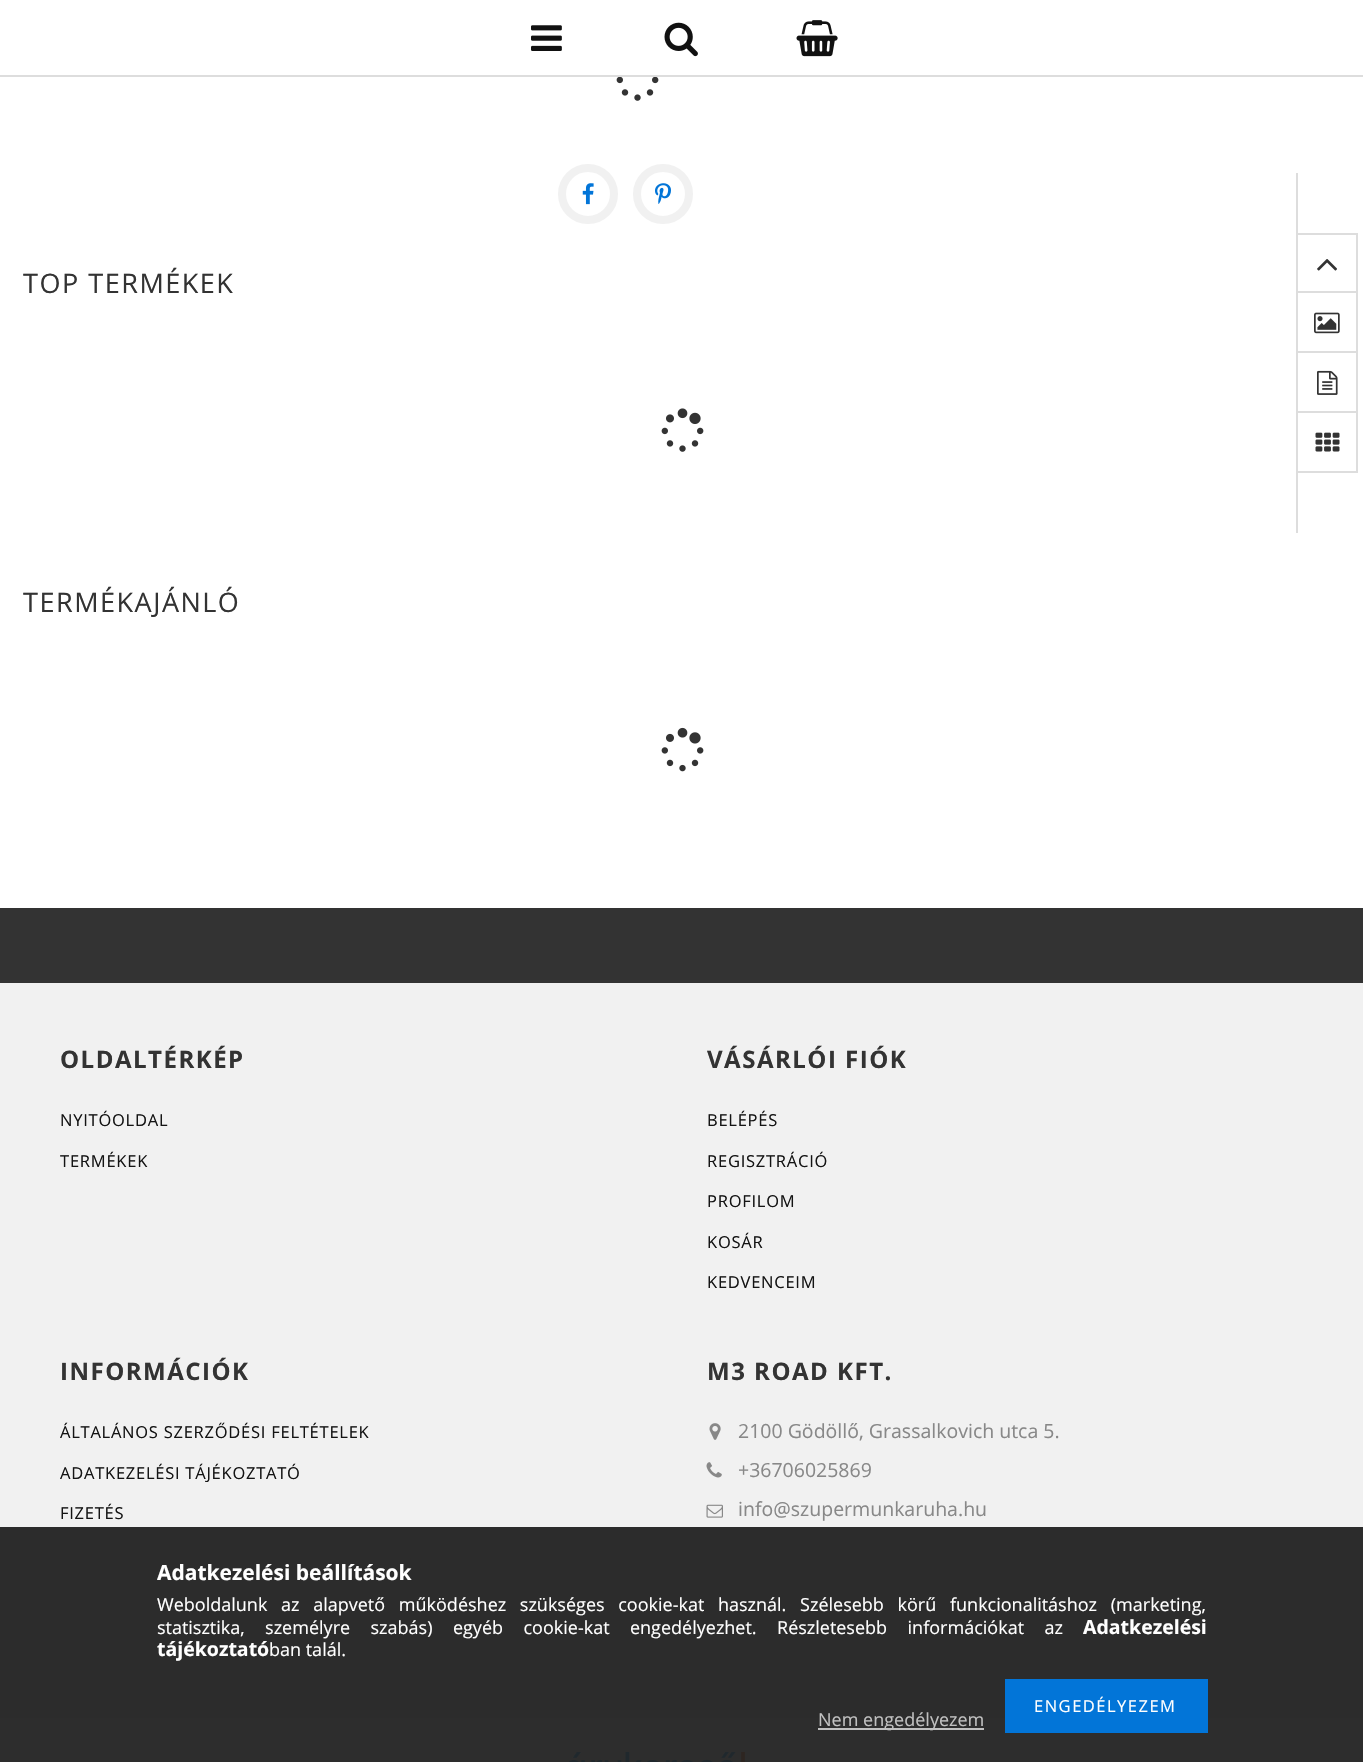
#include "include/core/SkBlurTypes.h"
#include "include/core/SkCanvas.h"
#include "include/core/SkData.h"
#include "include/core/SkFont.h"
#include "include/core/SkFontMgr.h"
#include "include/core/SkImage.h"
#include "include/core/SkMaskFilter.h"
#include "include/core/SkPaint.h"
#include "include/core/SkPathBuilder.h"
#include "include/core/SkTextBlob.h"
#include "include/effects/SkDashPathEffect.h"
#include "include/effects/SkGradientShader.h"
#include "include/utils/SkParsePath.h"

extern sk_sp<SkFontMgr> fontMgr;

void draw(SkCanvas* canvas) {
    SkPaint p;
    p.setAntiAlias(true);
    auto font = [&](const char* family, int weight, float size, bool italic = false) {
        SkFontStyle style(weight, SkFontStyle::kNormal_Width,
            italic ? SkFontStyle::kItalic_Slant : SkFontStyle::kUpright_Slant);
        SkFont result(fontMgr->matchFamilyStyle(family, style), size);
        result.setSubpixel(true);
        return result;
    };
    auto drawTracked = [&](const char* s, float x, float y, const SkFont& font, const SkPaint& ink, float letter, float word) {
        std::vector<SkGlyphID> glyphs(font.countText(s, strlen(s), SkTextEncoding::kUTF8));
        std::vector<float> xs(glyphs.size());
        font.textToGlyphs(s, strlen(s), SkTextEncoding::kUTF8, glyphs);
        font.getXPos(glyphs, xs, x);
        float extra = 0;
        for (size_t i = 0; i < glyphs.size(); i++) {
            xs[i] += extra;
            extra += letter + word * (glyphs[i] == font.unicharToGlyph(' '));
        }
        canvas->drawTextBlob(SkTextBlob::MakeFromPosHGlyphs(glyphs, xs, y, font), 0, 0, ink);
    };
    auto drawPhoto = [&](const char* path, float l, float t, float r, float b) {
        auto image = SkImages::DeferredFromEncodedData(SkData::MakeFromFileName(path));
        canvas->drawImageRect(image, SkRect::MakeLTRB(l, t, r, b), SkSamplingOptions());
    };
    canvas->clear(0xFFFFFFFF);
    p.setColor(0xFF2D2D2D);
    canvas->drawRect(SkRect::MakeLTRB(0, 1718, 1363, 1762), p);
    p.setColor(0xFFDDDDDD);
    canvas->drawRect(SkRect::MakeLTRB(0, 75, 1363, 77), p);
    drawPhoto("media/1.png", 531, 25, 562, 51);
    drawPhoto("media/2.png", 664, 22, 698, 57);
    drawPhoto("media/3.png", 796, 20, 838, 57);
    auto font1 = font("Open Sans", 400, 27);
    p.setColor(0xFF333333);
    drawTracked("TOP TERMÉKEK", 23, 293, font1, p, 1.5f, 0);
    drawPhoto("media/4.png", 661, 408, 704, 452);
    drawTracked("TERMÉKAJÁNLÓ", 23, 612, font1, p, 1.5f, 0);
    drawPhoto("media/5.png", 661, 727, 704, 772);
    drawPhoto("media/6.png", 616, 77, 659, 101);
    p.setStyle(SkPaint::kStroke_Style);
    p.setStrokeWidth(8);
    p.setColor(0xFFF1F1F1);
    canvas->drawCircle(588, 194, 26, p);
    drawPhoto("media/7.png", 582, 183, 594, 205);
    canvas->drawCircle(663, 194, 26, p);
    drawPhoto("media/8.png", 655, 183, 671, 204);
    p.setStyle(SkPaint::kFill_Style);
    {
        const struct { float l, t, r, b; SkColor color; } items[] = {
            {1296, 173, 1298, 533, 0xFFDDDDDD},
            {1298, 233, 1358, 235, 0xFFDDDDDD},
            {1356, 233, 1358, 473, 0xFFDDDDDD},
            {1298, 291, 1358, 293, 0xFFDDDDDD},
        };
        for (auto [l, t, r, b, color] : items) {
            p.setColor(color);
            canvas->drawRect(SkRect::MakeLTRB(l, t, r, b), p);
        }
    }
    drawPhoto("media/9.png", 1317, 259, 1337, 271);
    canvas->drawRect(SkRect::MakeLTRB(1298, 351, 1358, 353), p);
    drawPhoto("media/10.png", 1314, 312, 1340, 334);
    canvas->drawRect(SkRect::MakeLTRB(1298, 411, 1358, 413), p);
    drawPhoto("media/11.png", 1317, 370, 1338, 395);
    canvas->drawRect(SkRect::MakeLTRB(1298, 471, 1358, 473), p);
    drawPhoto("media/12.png", 1315, 432, 1340, 452);
    {
        const struct { float l, t, r, b; SkColor color; } items[] = {
            {0, 908, 1363, 983, 0xFF333333},
            {0, 983, 1363, 1527, 0xFFF1F1F1},
            {0, 1527, 1363, 1718, 0xFF2C2C2C},
        };
        for (auto [l, t, r, b, color] : items) {
            p.setColor(color);
            canvas->drawRect(SkRect::MakeLTRB(l, t, r, b), p);
        }
    }
    auto font2 = font("Open Sans", 700, 24);
    p.setColor(0xFF333333);
    drawTracked("OLDALTÉRKÉP", 60, 1068, font2, p, 1.5f, 0);
    auto font3 = font("Open Sans", 400, 16.5f);
    p.setColor(0xFF141414);
    drawTracked("NYITÓOLDAL", 60, 1126, font3, p, 0.75f, 0);
    drawTracked("TERMÉKEK", 60, 1167, font3, p, 0.75f, 0);
    p.setColor(0xFF333333);
    drawTracked("VÁSÁRLÓI FIÓK", 707, 1068, font2, p, 1.5f, 0);
    p.setColor(0xFF141414);
    {
        const struct { const char* s; float x, y; } items[] = {
            {"BELÉPÉS", 707, 1126},
            {"REGISZTRÁCIÓ", 707, 1167},
            {"PROFILOM", 707, 1207},
            {"KOSÁR", 707, 1248},
            {"KEDVENCEIM", 707, 1288},
        };
        for (auto [s, x, y] : items) {
            drawTracked(s, x, y, font3, p, 0.75f, 0);
        }
    }
    p.setColor(0xFF333333);
    drawTracked("INFORMÁCIÓK", 60, 1380, font2, p, 1.5f, 0);
    p.setColor(0xFF141414);
    {
        const struct { const char* s; float x, y; } items[] = {
            {"ÁLTALÁNOS SZERZŐDÉSI FELTÉTELEK", 60, 1438},
            {"ADATKEZELÉSI TÁJÉKOZTATÓ", 60, 1479},
            {"FIZETÉS", 60, 1519},
        };
        for (auto [s, x, y] : items) {
            drawTracked(s, x, y, font3, p, 0.75f, 0);
        }
    }
    p.setColor(0xFF333333);
    drawTracked("M3 ROAD KFT.", 707, 1380, font2, p, 1.5f, 0);
    drawPhoto("media/13.png", 709, 1423, 721, 1440);
    auto font4 = font("Open Sans", 400, 19.5f);
    p.setColor(0xFF888888);
    canvas->drawString("2100 Gödöllő, Grassalkovich utca 5.", 738, 1438, font4, p);
    drawPhoto("media/14.png", 706, 1462, 722, 1478);
    canvas->drawString("+36706025869", 738, 1477, font4, p);
    drawPhoto("media/15.png", 706, 1504, 723, 1518);
    canvas->drawString("info@szupermunkaruha.hu", 738, 1516, font4, p);
    drawPhoto("media/16.png", 568, 1752, 745, 1762);
    auto font5 = font("Open Sans", 700, 21);
    p.setColor(0xFFFFFFFF);
    canvas->drawString("Adatkezelési beállítások", 157, 1580, font5, p);
    auto font6 = font("Open Sans", 400, 18);
    drawTracked("Weboldalunk az alapvető működéshez szükséges cookie-kat használ. Szélesebb körű funkcionalitáshoz (marketing,", 157, 1611, font6, p, 0, 9);
    drawTracked("statisztika, személyre szabás) egyéb cookie-kat engedélyezhet. Részletesebb információkat az", 157, 1634, font6, p, 0, 15.75f);
    auto font7 = font("Open Sans", 700, 19.5f);
    canvas->drawString("Adatkezelési", 1083, 1634, font7, p);
    canvas->drawString("tájékoztató", 157, 1656, font7, p);
    canvas->drawString("ban talál.", 269, 1656, font6, p);
    p.setColor(0xFF0275D8);
    canvas->drawRect(SkRect::MakeLTRB(1005, 1679, 1208, 1733), p);
    p.setColor(0xFFFFFFFF);
    drawTracked("ENGEDÉLYEZEM", 1034, 1712, font3, p, 1.5f, 0);
    p.setColor(0xFFC0C0C0);
    canvas->drawRect(SkRect::MakeLTRB(818, 1728, 984, 1730), p);
    canvas->drawString("Nem engedélyezem", 818, 1726, font6, p);
}
